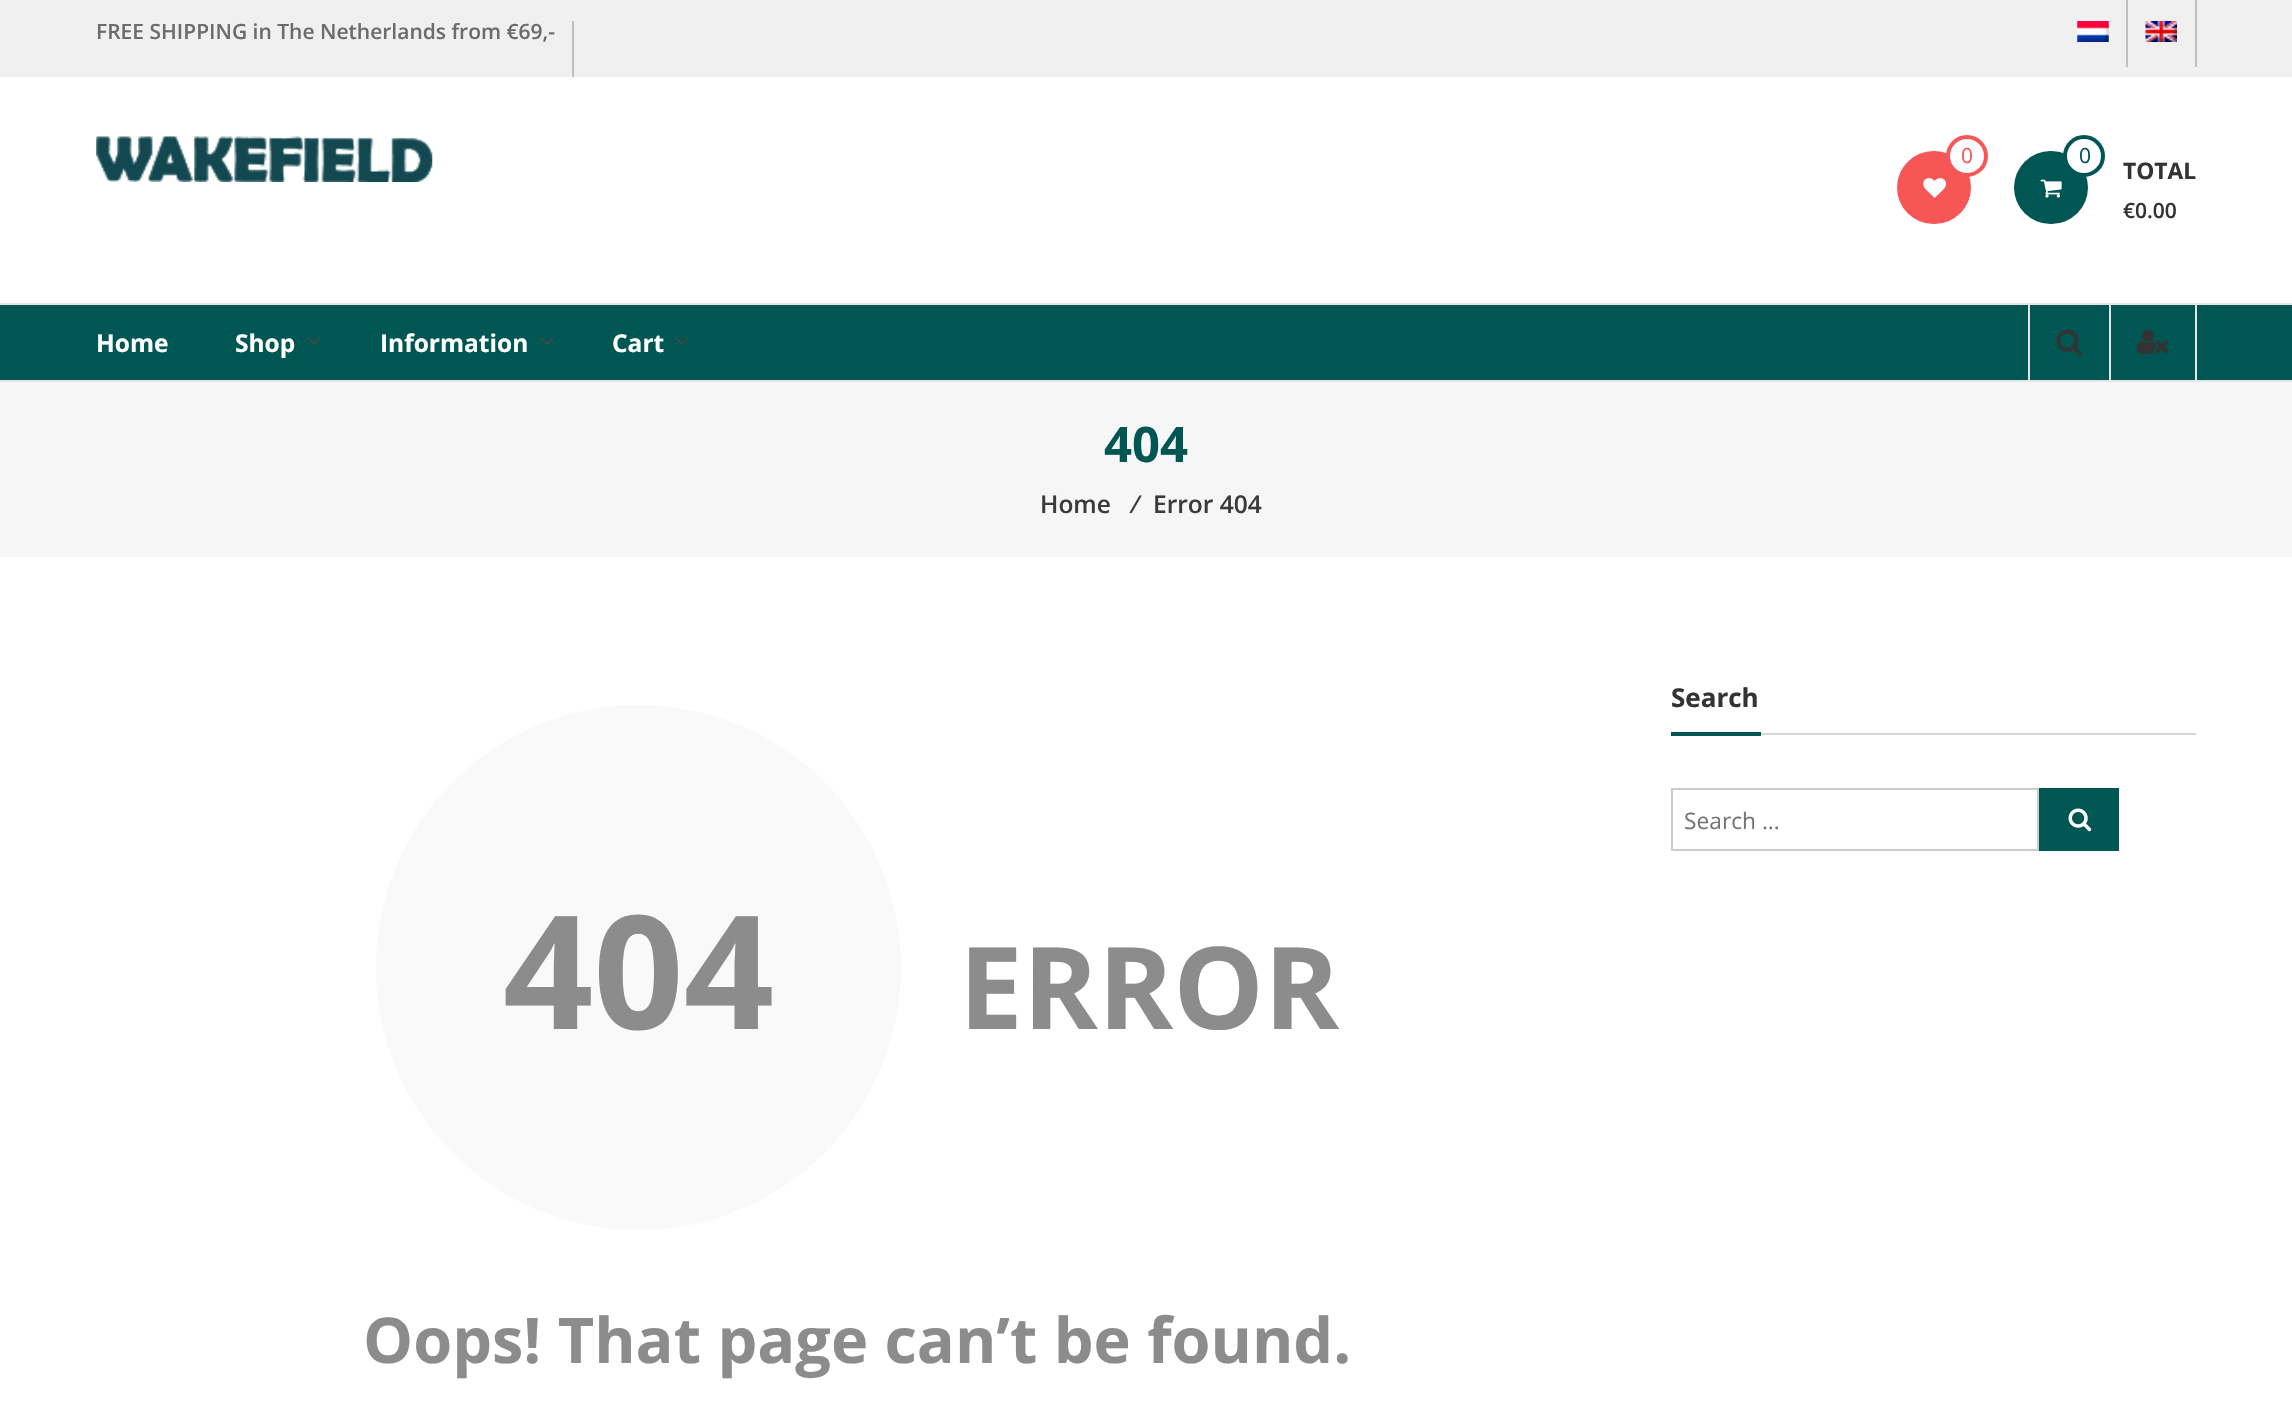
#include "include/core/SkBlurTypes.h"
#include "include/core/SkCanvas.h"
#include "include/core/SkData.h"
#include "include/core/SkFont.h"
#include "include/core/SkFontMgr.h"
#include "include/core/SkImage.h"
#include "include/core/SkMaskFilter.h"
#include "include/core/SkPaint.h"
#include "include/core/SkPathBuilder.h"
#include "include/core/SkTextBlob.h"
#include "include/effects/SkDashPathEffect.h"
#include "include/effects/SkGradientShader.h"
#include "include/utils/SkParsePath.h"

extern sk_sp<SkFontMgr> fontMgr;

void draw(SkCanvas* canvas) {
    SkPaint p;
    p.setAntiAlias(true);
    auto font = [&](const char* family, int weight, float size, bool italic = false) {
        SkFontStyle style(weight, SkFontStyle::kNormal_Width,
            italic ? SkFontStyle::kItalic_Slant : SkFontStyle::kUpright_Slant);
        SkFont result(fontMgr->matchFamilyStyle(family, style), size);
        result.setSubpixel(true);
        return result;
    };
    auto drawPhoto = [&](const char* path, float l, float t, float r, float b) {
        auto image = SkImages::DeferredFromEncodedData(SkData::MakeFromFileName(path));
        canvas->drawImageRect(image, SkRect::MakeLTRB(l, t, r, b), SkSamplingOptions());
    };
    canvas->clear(0xFFFFFFFF);
    p.setColor(0xFFF0F0F0);
    canvas->drawRect(SkRect::MakeLTRB(0, 0, 2292, 77), p);
    p.setColor(0xFFC0BFBF);
    canvas->drawRect(SkRect::MakeLTRB(572, 21, 574, 77), p);
    auto font1 = font("Open Sans", 600, 21);
    p.setColor(0xFF6D6C6C);
    canvas->drawString("FREE SHIPPING in The Netherlands from €69,-", 96, 39, font1, p);
    p.setColor(0xFFC0BFBF);
    canvas->drawRect(SkRect::MakeLTRB(2126, 0, 2128, 67), p);
    drawPhoto("media/1.png", 2077, 21, 2109, 42);
    canvas->drawRect(SkRect::MakeLTRB(2195, 0, 2197, 67), p);
    drawPhoto("media/2.png", 2145, 21, 2177, 42);
    drawPhoto("media/3.png", 96, 136, 433, 182);
    p.setColor(0xFFF65656);
    canvas->drawRoundRect(SkRect::MakeLTRB(1897, 151, 1971, 224), 36.5f, 36.5f, p);
    p.setColor(0xFFFFFFFF);
    canvas->drawCircle(1967, 156, 19, p);
    p.setStyle(SkPaint::kStroke_Style);
    p.setStrokeWidth(4);
    p.setColor(0xFFF65656);
    canvas->drawCircle(1967, 156, 19, p);
    auto font2 = font("Open Sans", 400, 21);
    p.setStyle(SkPaint::kFill_Style);
    canvas->drawString("0", 1961, 163, font2, p);
    drawPhoto("media/4.png", 1923, 178, 1946, 198);
    p.setColor(0xFF005653);
    canvas->drawRoundRect(SkRect::MakeLTRB(2014, 151, 2088, 224), 36.5f, 36.5f, p);
    p.setColor(0xFFFFFFFF);
    canvas->drawCircle(2084, 156, 19, p);
    p.setStyle(SkPaint::kStroke_Style);
    p.setColor(0xFF005653);
    canvas->drawCircle(2084, 156, 19, p);
    p.setStyle(SkPaint::kFill_Style);
    canvas->drawString("0", 2079, 163, font2, p);
    drawPhoto("media/5.png", 2040, 179, 2062, 198);
    auto font3 = font("Open Sans", 700, 22.75f);
    p.setColor(0xFF333333);
    canvas->drawString("TOTAL", 2123, 179, font3, p);
    canvas->drawString("€0.00", 2123, 218, font1, p);
    {
        const struct { float l, t, r, b; SkColor color; } items[] = {
            {0, 305, 2292, 380, 0xFF005653},
            {0, 303, 2292, 305, 0xFFE5E5E5},
            {0, 380, 2292, 382, 0xFFE5E5E5},
        };
        for (auto [l, t, r, b, color] : items) {
            p.setColor(color);
            canvas->drawRect(SkRect::MakeLTRB(l, t, r, b), p);
        }
    }
    auto font4 = font("Open Sans", 700, 24.5f);
    p.setColor(0xFFFFFFFF);
    canvas->drawString("Home", 96, 352, font4, p);
    canvas->drawString("Shop", 235, 352, font4, p);
    drawPhoto("media/6.png", 307, 337, 321, 345);
    canvas->drawString("Information", 380, 352, font4, p);
    drawPhoto("media/7.png", 540, 337, 554, 345);
    canvas->drawString("Cart", 612, 352, font4, p);
    drawPhoto("media/8.png", 674, 337, 689, 345);
    p.setColor(0xFFE5E5E5);
    canvas->drawRect(SkRect::MakeLTRB(2028, 305, 2030, 380), p);
    drawPhoto("media/9.png", 2056, 329, 2083, 356);
    canvas->drawRect(SkRect::MakeLTRB(2195, 305, 2197, 380), p);
    canvas->drawRect(SkRect::MakeLTRB(2109, 305, 2111, 380), p);
    drawPhoto("media/10.png", 2136, 329, 2169, 354);
    p.setColor(0xFFF6F6F6);
    canvas->drawRect(SkRect::MakeLTRB(0, 382, 2292, 557), p);
    auto font5 = font("Open Sans", 700, 49);
    p.setColor(0xFF005653);
    canvas->drawString("404", 1104, 462, font5, p);
    auto font6 = font("Open Sans", 600, 24.5f);
    p.setColor(0xFF3B3B3B);
    {
        const struct { const char* s; float x, y; } items[] = {
            {"Home", 1040, 513},
            {"⁄", 1134, 513},
            {"Error 404", 1153, 513},
        };
        for (auto [s, x, y] : items) {
            canvas->drawString(s, x, y, font6, p);
        }
    }
    p.setColor(0xFFD6D6D6);
    canvas->drawRect(SkRect::MakeLTRB(1761, 733, 2196, 735), p);
    p.setColor(0xFF005653);
    canvas->drawRect(SkRect::MakeLTRB(1671, 732, 1761, 736), p);
    auto font7 = font("Open Sans", 700, 26);
    p.setColor(0xFF333333);
    canvas->drawString("Search", 1671, 707, font7, p);
    p.setStyle(SkPaint::kStroke_Style);
    p.setStrokeWidth(2);
    p.setColor(0xFFCCCCCC);
    canvas->drawRect(SkRect::MakeLTRB(1672, 789, 2038, 850), p);
    auto font8 = font("Open Sans", 400, 22.75f);
    p.setStyle(SkPaint::kFill_Style);
    p.setColor(0xFF757575);
    canvas->drawString("Search …", 1684, 829, font8, p);
    p.setColor(0xFF005653);
    canvas->drawRect(SkRect::MakeLTRB(2039, 788, 2119, 851), p);
    drawPhoto("media/11.png", 2068, 808, 2092, 832);
    p.setColor(0xFFF9F9F9);
    canvas->drawCircle(638.5f, 967.5f, 262.5f, p);
    auto font9 = font("Open Sans", 700, 158);
    p.setColor(0xFF8C8C8C);
    canvas->drawString("404", 503, 1029, font9, p);
    auto font10 = font("Open Sans", 700, 114);
    canvas->drawString("ERROR", 959, 1029, font10, p);
    auto font11 = font("Open Sans", 700, 63);
    canvas->drawString("Oops! That page can’t be found.", 363, 1363, font11, p);
}
